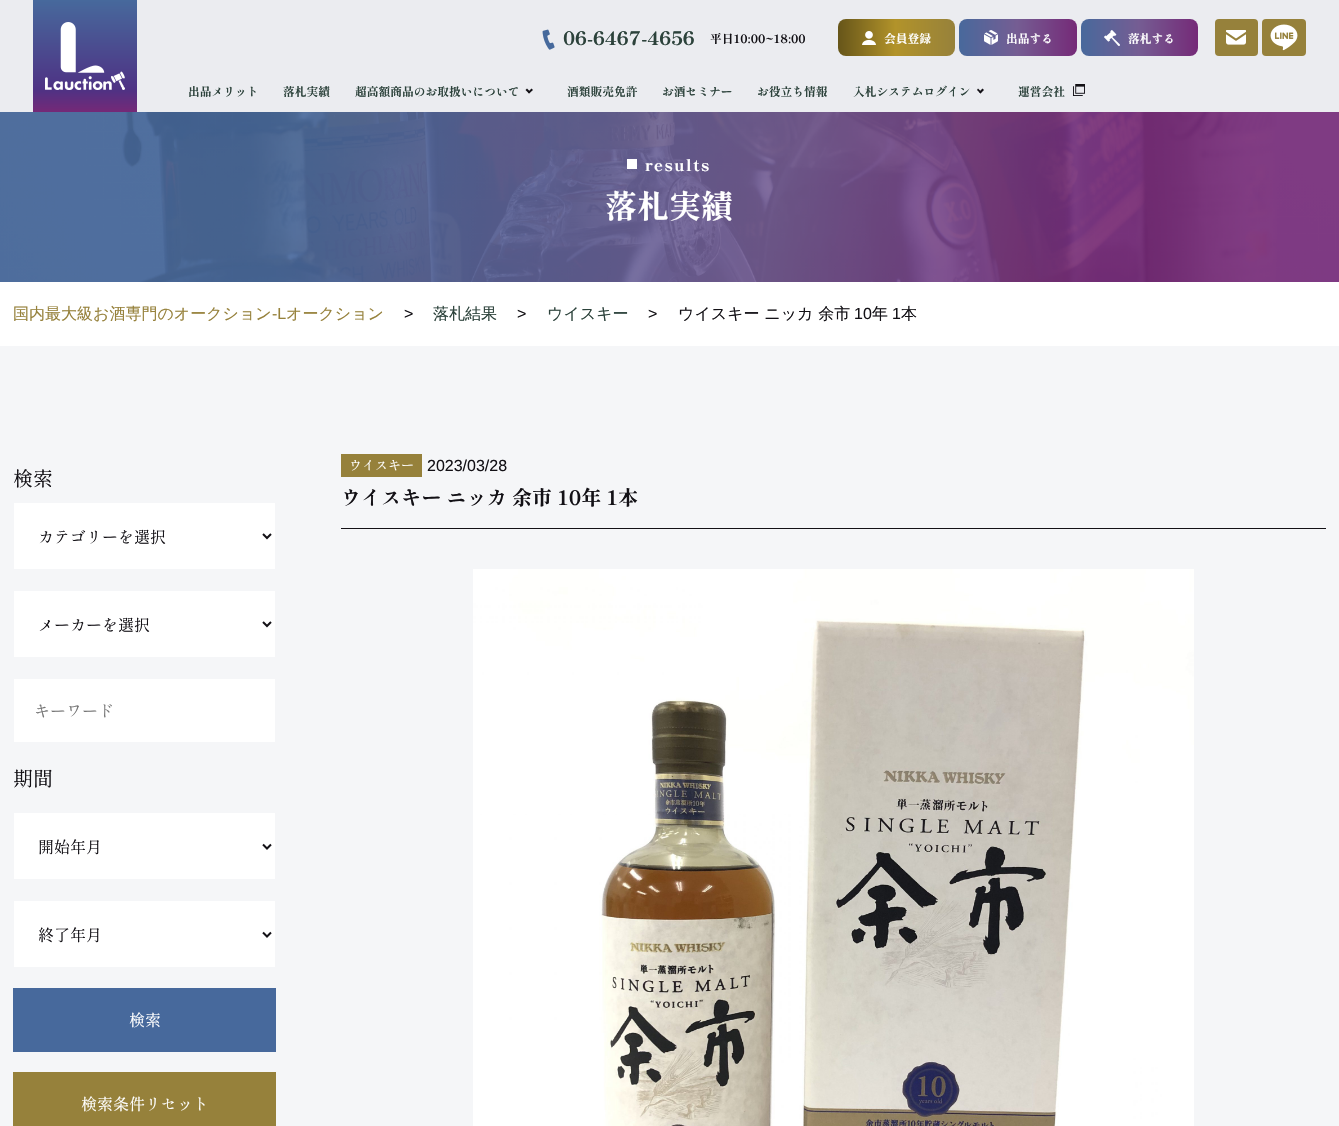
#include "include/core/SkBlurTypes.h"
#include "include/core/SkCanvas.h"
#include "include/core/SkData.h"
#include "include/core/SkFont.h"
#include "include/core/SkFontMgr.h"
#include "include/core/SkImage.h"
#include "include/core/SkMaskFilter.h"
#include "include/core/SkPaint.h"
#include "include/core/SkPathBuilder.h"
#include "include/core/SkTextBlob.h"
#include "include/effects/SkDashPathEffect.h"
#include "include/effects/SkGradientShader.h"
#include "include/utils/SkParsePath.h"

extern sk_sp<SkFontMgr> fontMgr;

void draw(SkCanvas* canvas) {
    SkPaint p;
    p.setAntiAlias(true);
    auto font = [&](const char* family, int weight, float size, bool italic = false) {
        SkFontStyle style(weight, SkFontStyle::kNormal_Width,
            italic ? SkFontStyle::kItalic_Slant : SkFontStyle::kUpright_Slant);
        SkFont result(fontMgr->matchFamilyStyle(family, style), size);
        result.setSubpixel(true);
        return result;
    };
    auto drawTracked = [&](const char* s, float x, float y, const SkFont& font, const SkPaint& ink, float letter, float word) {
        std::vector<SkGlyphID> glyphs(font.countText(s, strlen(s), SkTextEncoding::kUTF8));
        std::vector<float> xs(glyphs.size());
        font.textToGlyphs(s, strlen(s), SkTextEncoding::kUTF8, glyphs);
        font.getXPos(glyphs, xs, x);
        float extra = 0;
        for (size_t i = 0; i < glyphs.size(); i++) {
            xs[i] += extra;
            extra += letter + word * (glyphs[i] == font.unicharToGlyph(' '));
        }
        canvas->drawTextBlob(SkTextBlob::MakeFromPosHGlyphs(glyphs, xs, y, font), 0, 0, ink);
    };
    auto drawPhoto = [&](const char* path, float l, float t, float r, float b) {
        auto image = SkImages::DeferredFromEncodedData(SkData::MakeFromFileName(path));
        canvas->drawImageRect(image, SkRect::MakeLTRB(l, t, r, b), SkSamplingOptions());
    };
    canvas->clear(0xFFF5F6F8);
    p.setColor(0xFFEBECF0);
    canvas->drawRect(SkRect::MakeLTRB(0, 0, 1339, 112), p);
    {
        const SkColor colors[] = {0xFF47699C, 0xFF4E3284, 0xFF752977};
        const float stops[] = {0, 0.8f, 1};
        const SkPoint ends[] = {{85, 0}, {85, 112}};
        p.setShader(SkGradientShader::MakeLinear(ends, colors, stops, 3, SkTileMode::kClamp));
        p.setAlpha(255);
    }
    canvas->drawRect(SkRect::MakeLTRB(33, 0, 137, 112), p);
    drawPhoto("media/1.png", 45, 22, 125, 90);
    drawPhoto("media/2.png", 542, 29, 555, 50);
    auto font1 = font("Shippori Mincho B1", 800, 18.5f);
    p.setShader(nullptr);
    p.setColor(0xFF2C423B);
    canvas->drawString("06-6467-4656", 563, 45, font1, p);
    auto font2 = font("Shippori Mincho B1", 700, 11.75f);
    p.setColor(0xFF131116);
    canvas->drawString("平日10:00~18:00", 710, 43, font2, p);
    {
        const SkColor colors[] = {0xFF655419, 0xFFB2932A, 0xFF96813B, 0xFFB2932A, 0xFF655419};
        const float stops[] = {0, 0.25f, 0.51f, 0.75f, 1};
        const SkPoint ends[] = {{837, 38}, {1071, 37}};
        p.setShader(SkGradientShader::MakeLinear(ends, colors, stops, 5, SkTileMode::kClamp));
        p.setAlpha(255);
    }
    canvas->drawRoundRect(SkRect::MakeLTRB(838, 19, 955, 56), 8, 8, p);
    drawPhoto("media/3.png", 862, 31, 876, 45);
    p.setShader(nullptr);
    p.setColor(0xFFFFFFFF);
    canvas->drawString("会員登録", 884, 43, font2, p);
    {
        const SkColor colors[] = {0xFF47699C, 0xFF755D93, 0xFF752977, 0xFF755D93, 0xFF47699C};
        const float stops[] = {0, 0.25f, 0.51f, 0.75f, 1};
        const SkPoint ends[] = {{958, 38}, {1194, 37}};
        p.setShader(SkGradientShader::MakeLinear(ends, colors, stops, 5, SkTileMode::kClamp));
        p.setAlpha(255);
    }
    canvas->drawRoundRect(SkRect::MakeLTRB(959, 19, 1077, 56), 8, 8, p);
    drawPhoto("media/4.png", 984, 30, 998, 45);
    p.setShader(nullptr);
    p.setColor(0xFFFFFFFF);
    canvas->drawString("出品する", 1006, 43, font2, p);
    {
        const SkColor colors[] = {0xFF47699C, 0xFF755D93, 0xFF752977, 0xFF755D93, 0xFF47699C};
        const float stops[] = {0, 0.25f, 0.51f, 0.75f, 1};
        const SkPoint ends[] = {{1080, 38}, {1314, 37}};
        p.setShader(SkGradientShader::MakeLinear(ends, colors, stops, 5, SkTileMode::kClamp));
        p.setAlpha(255);
    }
    canvas->drawRoundRect(SkRect::MakeLTRB(1081, 19, 1198, 56), 8, 8, p);
    drawPhoto("media/5.png", 1104, 30, 1120, 46);
    p.setShader(nullptr);
    p.setColor(0xFFFFFFFF);
    canvas->drawString("落札する", 1128, 43, font2, p);
    p.setColor(0xFF96813B);
    canvas->drawRoundRect(SkRect::MakeLTRB(1215, 19, 1258, 56), 4, 4, p);
    drawPhoto("media/6.png", 1226, 30, 1246, 45);
    canvas->drawRoundRect(SkRect::MakeLTRB(1262, 19, 1306, 56), 4, 4, p);
    drawPhoto("media/7.png", 1270, 24, 1298, 51);
    p.setColor(0xFF2C423B);
    {
        const struct { const char* s; float x, y; } items[] = {
            {"出品メリット", 188, 96},
            {"落札実績", 283, 96},
            {"超高額商品のお取扱いについて", 355, 96},
        };
        for (auto [s, x, y] : items) {
            canvas->drawString(s, x, y, font2, p);
        }
    }
    p.setColor(0xFF131116);
    canvas->drawPath(SkPathBuilder().moveTo(531.5f, 88.5f).lineTo(533, 90).lineTo(529, 93.5f).lineTo(528, 92).close().detach(), p);
    canvas->drawPath(SkPathBuilder().moveTo(527, 88.5f).lineTo(530.5f, 92).lineTo(529, 93.5f).lineTo(525.5f, 90).close().detach(), p);
    p.setColor(0xFF2C423B);
    {
        const struct { const char* s; float x, y; } items[] = {
            {"酒類販売免許", 567, 96},
            {"お酒セミナー", 662, 96},
            {"お役立ち情報", 757, 96},
            {"入札システムログイン", 853, 96},
        };
        for (auto [s, x, y] : items) {
            canvas->drawString(s, x, y, font2, p);
        }
    }
    p.setColor(0xFF131116);
    canvas->drawPath(SkPathBuilder().moveTo(982.5f, 88.5f).lineTo(984, 90).lineTo(980.5f, 93.5f).lineTo(979, 92).close().detach(), p);
    canvas->drawPath(SkPathBuilder().moveTo(978, 88.5f).lineTo(981.5f, 92).lineTo(980.5f, 93.5f).lineTo(977, 90).close().detach(), p);
    p.setColor(0xFF2C423B);
    canvas->drawString("運営会社", 1018, 96, font2, p);
    drawPhoto("media/8.png", 1073, 84, 1085, 96);
    drawPhoto("media/9.png", 0, 112, 1339, 282);
    p.setColor(0xFFFFFFFF);
    canvas->drawRect(SkRect::MakeLTRB(627, 159, 637, 169), p);
    auto font3 = font("Shippori Mincho B1", 800, 16);
    drawTracked("results", 645, 171, font3, p, 1.5f, 0);
    auto font4 = font("Shippori Mincho B1", 700, 32);
    canvas->drawString("落札実績", 605, 218, font4, p);
    canvas->drawRect(SkRect::MakeLTRB(0, 282, 1339, 346), p);
    auto font5 = font("WenQuanYi Zen Hei", 500, 16);
    p.setColor(0xFF96813B);
    canvas->drawString("国内最大級お酒専門のオークション", 13, 319, font5, p);
    auto font6 = font("Liberation Sans", 400, 16);
    canvas->drawString("-L", 272, 319, font6, p);
    canvas->drawString("オークション", 286, 319, font5, p);
    p.setColor(0xFF131116);
    canvas->drawString(">", 404, 319, font6, p);
    p.setColor(0xFF2C423B);
    canvas->drawString("落札結果", 433, 319, font5, p);
    p.setColor(0xFF131116);
    canvas->drawString(">", 517, 319, font6, p);
    p.setColor(0xFF2C423B);
    canvas->drawString("ウイスキー", 547, 319, font5, p);
    p.setColor(0xFF131116);
    canvas->drawString(">", 648, 319, font6, p);
    canvas->drawString("ウイスキー ニッカ 余市", 678, 319, font5, p);
    canvas->drawString("10", 854, 319, font6, p);
    canvas->drawString("年", 872, 319, font5, p);
    canvas->drawString("1", 892, 319, font6, p);
    canvas->drawString("本", 901, 319, font5, p);
    auto font7 = font("Shippori Mincho B1", 400, 20);
    canvas->drawString("検索", 13, 486, font7, p);
    p.setColor(0xFFFFFFFF);
    canvas->drawRect(SkRect::MakeLTRB(14, 503, 275, 569), p);
    p.setStyle(SkPaint::kStroke_Style);
    p.setStrokeWidth(2);
    p.setColor(0xFF131116);
    canvas->drawPath(SkPathBuilder().moveTo(263, 534).lineTo(267, 538).lineTo(271, 534).detach(), p);
    auto font8 = font("Shippori Mincho B1", 400, 16);
    p.setStyle(SkPaint::kFill_Style);
    canvas->drawString("カテゴリーを選択", 38, 543, font8, p);
    p.setColor(0xFFFFFFFF);
    canvas->drawRect(SkRect::MakeLTRB(14, 591, 275, 657), p);
    p.setStyle(SkPaint::kStroke_Style);
    p.setColor(0xFF131116);
    canvas->drawPath(SkPathBuilder().moveTo(263, 622).lineTo(267, 626).lineTo(271, 622).detach(), p);
    p.setStyle(SkPaint::kFill_Style);
    canvas->drawString("メーカーを選択", 38, 631, font8, p);
    p.setColor(0xFFFFFFFF);
    canvas->drawRect(SkRect::MakeLTRB(14, 679, 275, 742), p);
    p.setColor(0xFF757575);
    canvas->drawString("キーワード", 34, 717, font8, p);
    p.setColor(0xFF131116);
    canvas->drawString("期間", 13, 786, font7, p);
    p.setColor(0xFFFFFFFF);
    canvas->drawRect(SkRect::MakeLTRB(14, 813, 275, 879), p);
    p.setStyle(SkPaint::kStroke_Style);
    p.setColor(0xFF131116);
    canvas->drawPath(SkPathBuilder().moveTo(263, 844.5f).lineTo(267, 848.5f).lineTo(271, 844.5f).detach(), p);
    p.setStyle(SkPaint::kFill_Style);
    canvas->drawString("開始年月", 38, 853, font8, p);
    p.setColor(0xFFFFFFFF);
    canvas->drawRect(SkRect::MakeLTRB(14, 901, 275, 967), p);
    p.setStyle(SkPaint::kStroke_Style);
    p.setColor(0xFF131116);
    canvas->drawPath(SkPathBuilder().moveTo(263, 932.5f).lineTo(267, 936.5f).lineTo(271, 932.5f).detach(), p);
    p.setStyle(SkPaint::kFill_Style);
    canvas->drawString("終了年月", 38, 941, font8, p);
    p.setColor(0xFF47699C);
    canvas->drawRect(SkRect::MakeLTRB(13, 988, 276, 1052), p);
    p.setColor(0xFFFFFFFF);
    canvas->drawString("検索", 129, 1026, font8, p);
    p.setColor(0xFF96813B);
    canvas->drawRect(SkRect::MakeLTRB(13, 1072, 276, 1126), p);
    p.setColor(0xFFFFFFFF);
    canvas->drawString("検索条件リセット", 81, 1110, font8, p);
    p.setColor(0xFF96813B);
    canvas->drawRect(SkRect::MakeLTRB(341, 454, 422, 477), p);
    auto font9 = font("Shippori Mincho B1", 400, 13);
    p.setColor(0xFFFFFFFF);
    canvas->drawString("ウイスキー", 349, 470, font9, p);
    p.setColor(0xFF131116);
    canvas->drawString("2023/03/28", 427, 471, font6, p);
    canvas->drawRect(SkRect::MakeLTRB(341, 528, 1326, 529), p);
    auto font10 = font("Shippori Mincho B1", 700, 20.1f);
    canvas->drawString("ウイスキー ニッカ 余市 10年 1本", 341, 505, font10, p);
    drawPhoto("media/10.png", 473, 569, 1194, 1126);
}
